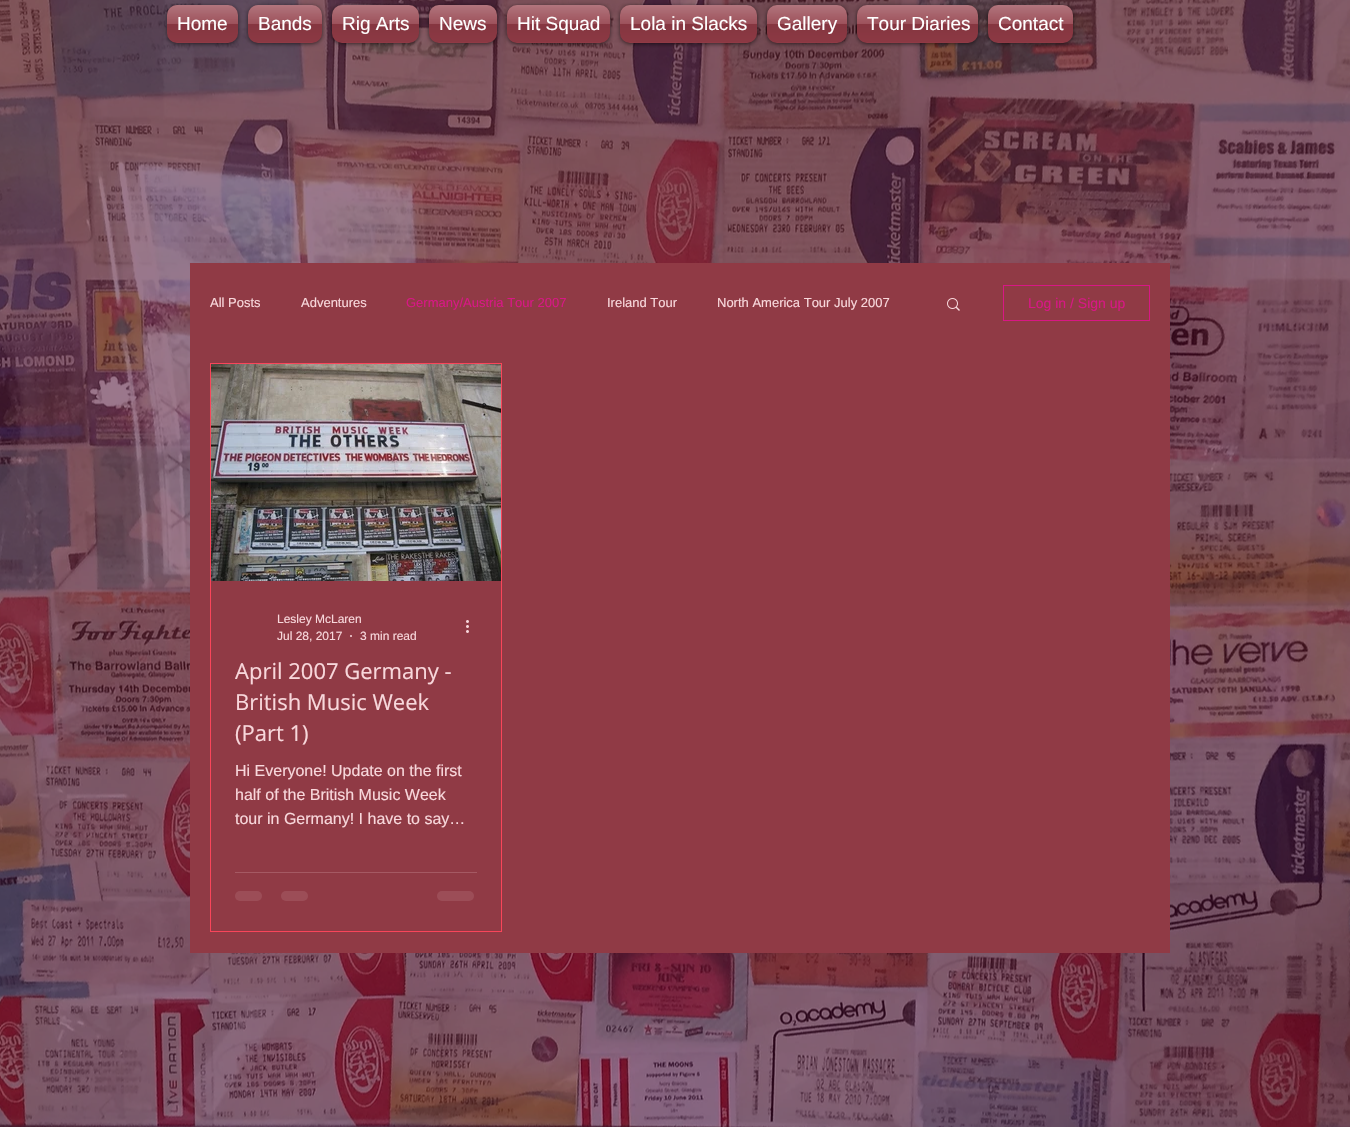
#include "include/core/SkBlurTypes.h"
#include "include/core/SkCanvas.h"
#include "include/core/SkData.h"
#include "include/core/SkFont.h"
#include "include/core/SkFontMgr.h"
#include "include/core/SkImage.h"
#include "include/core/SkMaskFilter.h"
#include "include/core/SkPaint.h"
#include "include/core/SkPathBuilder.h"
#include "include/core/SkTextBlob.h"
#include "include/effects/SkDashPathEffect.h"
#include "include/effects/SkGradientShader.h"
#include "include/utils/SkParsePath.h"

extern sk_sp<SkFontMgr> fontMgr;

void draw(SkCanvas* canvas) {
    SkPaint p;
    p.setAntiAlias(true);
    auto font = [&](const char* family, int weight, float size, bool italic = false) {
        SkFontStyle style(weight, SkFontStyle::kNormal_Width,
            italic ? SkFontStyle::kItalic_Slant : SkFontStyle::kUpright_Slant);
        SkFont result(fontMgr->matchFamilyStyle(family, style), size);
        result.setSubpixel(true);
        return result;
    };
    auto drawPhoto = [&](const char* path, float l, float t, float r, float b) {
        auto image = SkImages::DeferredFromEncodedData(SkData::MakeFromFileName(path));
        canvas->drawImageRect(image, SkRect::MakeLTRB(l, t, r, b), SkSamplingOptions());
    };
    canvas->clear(0xFF48072C);
    drawPhoto("media/1.png", 0, 0, 1350, 1127);
    p.setColor(0x99000000);
    p.setMaskFilter(SkMaskFilter::MakeBlur(kNormal_SkBlurStyle, 2));
    canvas->drawRoundRect(SkRect::MakeLTRB(167, 6, 238, 44), 10, 10, p);
    p.setMaskFilter(nullptr);
    p.setColor(0xFF903A45);
    canvas->drawRoundRect(SkRect::MakeLTRB(167, 5, 238, 43), 10, 10, p);
    drawPhoto("media/2.png", 167, 5, 238, 42);
    auto font1 = font("Liberation Sans", 400, 19);
    p.setColor(0xFFFFFFFF);
    canvas->drawString("Home", 177, 30, font1, p);
    p.setColor(0x99000000);
    p.setMaskFilter(SkMaskFilter::MakeBlur(kNormal_SkBlurStyle, 2));
    canvas->drawRoundRect(SkRect::MakeLTRB(248, 6, 322, 44), 10, 10, p);
    p.setMaskFilter(nullptr);
    p.setColor(0xFF903A45);
    canvas->drawRoundRect(SkRect::MakeLTRB(248, 5, 322, 43), 10, 10, p);
    drawPhoto("media/3.png", 248, 5, 322, 42);
    p.setColor(0xFFFFFFFF);
    canvas->drawString("Bands", 258, 30, font1, p);
    p.setColor(0x99000000);
    p.setMaskFilter(SkMaskFilter::MakeBlur(kNormal_SkBlurStyle, 2));
    canvas->drawRoundRect(SkRect::MakeLTRB(332, 6, 419, 44), 10, 10, p);
    p.setMaskFilter(nullptr);
    p.setColor(0xFF903A45);
    canvas->drawRoundRect(SkRect::MakeLTRB(332, 5, 419, 43), 10, 10, p);
    drawPhoto("media/4.png", 332, 5, 419, 42);
    p.setColor(0xFFFFFFFF);
    canvas->drawString("Rig Arts", 342, 30, font1, p);
    p.setColor(0x99000000);
    p.setMaskFilter(SkMaskFilter::MakeBlur(kNormal_SkBlurStyle, 2));
    canvas->drawRoundRect(SkRect::MakeLTRB(429, 6, 497, 44), 10, 10, p);
    p.setMaskFilter(nullptr);
    p.setColor(0xFF903A45);
    canvas->drawRoundRect(SkRect::MakeLTRB(429, 5, 497, 43), 10, 10, p);
    drawPhoto("media/5.png", 429, 5, 497, 42);
    p.setColor(0xFFFFFFFF);
    canvas->drawString("News", 439, 30, font1, p);
    p.setColor(0x99000000);
    p.setMaskFilter(SkMaskFilter::MakeBlur(kNormal_SkBlurStyle, 2));
    canvas->drawRoundRect(SkRect::MakeLTRB(507, 6, 610, 44), 10, 10, p);
    p.setMaskFilter(nullptr);
    p.setColor(0xFF903A45);
    canvas->drawRoundRect(SkRect::MakeLTRB(507, 5, 610, 43), 10, 10, p);
    drawPhoto("media/6.png", 507, 5, 610, 42);
    p.setColor(0xFFFFFFFF);
    canvas->drawString("Hit Squad", 517, 30, font1, p);
    p.setColor(0x99000000);
    p.setMaskFilter(SkMaskFilter::MakeBlur(kNormal_SkBlurStyle, 2));
    canvas->drawRoundRect(SkRect::MakeLTRB(620, 6, 757, 44), 10, 10, p);
    p.setMaskFilter(nullptr);
    p.setColor(0xFF903A45);
    canvas->drawRoundRect(SkRect::MakeLTRB(620, 5, 757, 43), 10, 10, p);
    drawPhoto("media/7.png", 620, 5, 757, 42);
    p.setColor(0xFFFFFFFF);
    canvas->drawString("Lola in Slacks", 630, 30, font1, p);
    p.setColor(0x99000000);
    p.setMaskFilter(SkMaskFilter::MakeBlur(kNormal_SkBlurStyle, 2));
    canvas->drawRoundRect(SkRect::MakeLTRB(767, 6, 847, 44), 10, 10, p);
    p.setMaskFilter(nullptr);
    p.setColor(0xFF903A45);
    canvas->drawRoundRect(SkRect::MakeLTRB(767, 5, 847, 43), 10, 10, p);
    drawPhoto("media/8.png", 767, 5, 847, 42);
    p.setColor(0xFFFFFFFF);
    canvas->drawString("Gallery", 777, 30, font1, p);
    p.setColor(0x99000000);
    p.setMaskFilter(SkMaskFilter::MakeBlur(kNormal_SkBlurStyle, 2));
    canvas->drawRoundRect(SkRect::MakeLTRB(857, 6, 978, 44), 10, 10, p);
    p.setMaskFilter(nullptr);
    p.setColor(0xFF903A45);
    canvas->drawRoundRect(SkRect::MakeLTRB(857, 5, 978, 43), 10, 10, p);
    drawPhoto("media/9.png", 857, 5, 978, 42);
    p.setColor(0xFFFFFFFF);
    canvas->drawString("Tour Diaries", 867, 30, font1, p);
    p.setColor(0x99000000);
    p.setMaskFilter(SkMaskFilter::MakeBlur(kNormal_SkBlurStyle, 2));
    canvas->drawRoundRect(SkRect::MakeLTRB(988, 6, 1073, 44), 10, 10, p);
    p.setMaskFilter(nullptr);
    p.setColor(0xFF903A45);
    canvas->drawRoundRect(SkRect::MakeLTRB(988, 5, 1073, 43), 10, 10, p);
    drawPhoto("media/10.png", 988, 5, 1073, 42);
    p.setColor(0xFFFFFFFF);
    canvas->drawString("Contact", 998, 30, font1, p);
    p.setColor(0xFF903A45);
    canvas->drawRect(SkRect::MakeLTRB(190, 263, 1170, 953), p);
    auto font2 = font("Liberation Sans", 400, 13);
    p.setColor(0xFFF8D7DB);
    canvas->drawString("All Posts", 210, 307, font2, p);
    canvas->drawString("Adventures", 301, 307, font2, p);
    p.setColor(0xFFD81785);
    canvas->drawString("Germany/Austria Tour 2007", 406, 307, font2, p);
    p.setColor(0xFFF8D7DB);
    canvas->drawString("Ireland Tour", 607, 307, font2, p);
    canvas->drawString("North America Tour July 2007", 717, 307, font2, p);
    drawPhoto("media/11.png", 947, 298, 960, 311);
    p.setStyle(SkPaint::kStroke_Style);
    p.setStrokeWidth(1);
    p.setColor(0xFFD81785);
    canvas->drawRect(SkRect::MakeLTRB(1003.5f, 285.5f, 1149.5f, 320.5f), p);
    auto font3 = font("Liberation Sans", 400, 14);
    p.setStyle(SkPaint::kFill_Style);
    canvas->drawString("Log in / Sign up", 1028, 308, font3, p);
    p.setStyle(SkPaint::kStroke_Style);
    p.setColor(0xFFF9455A);
    canvas->drawRect(SkRect::MakeLTRB(210.5f, 363.5f, 501.5f, 931.5f), p);
    drawPhoto("media/12.png", 211, 364, 501, 581);
    auto font4 = font("Liberation Sans", 400, 12);
    p.setStyle(SkPaint::kFill_Style);
    p.setColor(0xFFF8D7DB);
    canvas->drawString("Lesley McLaren", 277, 623, font4, p);
    canvas->drawString("Jul 28, 2017", 277, 640, font4, p);
    canvas->drawCircle(351, 636, 1, p);
    canvas->drawString("3 min read", 360, 640, font4, p);
    drawPhoto("media/13.png", 466, 620, 469, 633);
    auto font5 = font("Open Sans", 400, 22);
    {
        const struct { const char* s; float x, y; } items[] = {
            {"April 2007 Germany -", 235, 679},
            {"British Music Week", 235, 710},
            {"(Part 1)", 235, 741},
        };
        for (auto [s, x, y] : items) {
            canvas->drawString(s, x, y, font5, p);
        }
    }
    auto font6 = font("Liberation Sans", 400, 16);
    {
        const struct { const char* s; float x, y; } items[] = {
            {"Hi Everyone! Update on the first", 235, 776},
            {"half of the British Music Week", 235, 800},
            {"tour in Germany! I have to say…", 235, 824},
        };
        for (auto [s, x, y] : items) {
            canvas->drawString(s, x, y, font6, p);
        }
    }
    p.setColor(0xFFA55963);
    canvas->drawRect(SkRect::MakeLTRB(235, 872, 477, 873), p);
    p.setColor(0xFF9C4D57);
    canvas->drawRoundRect(SkRect::MakeLTRB(235, 891, 262, 901), 5, 5, p);
    canvas->drawRoundRect(SkRect::MakeLTRB(281, 891, 308, 901), 5, 5, p);
    canvas->drawRoundRect(SkRect::MakeLTRB(437, 891, 474, 901), 5, 5, p);
}
